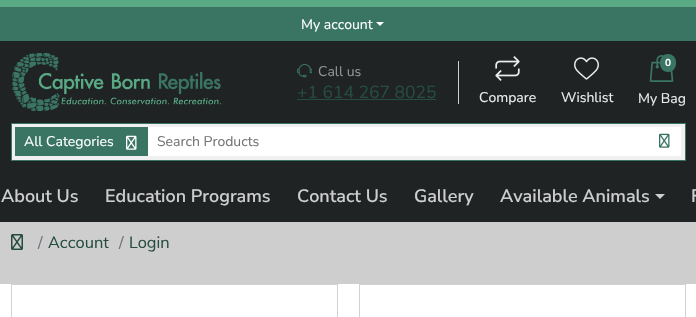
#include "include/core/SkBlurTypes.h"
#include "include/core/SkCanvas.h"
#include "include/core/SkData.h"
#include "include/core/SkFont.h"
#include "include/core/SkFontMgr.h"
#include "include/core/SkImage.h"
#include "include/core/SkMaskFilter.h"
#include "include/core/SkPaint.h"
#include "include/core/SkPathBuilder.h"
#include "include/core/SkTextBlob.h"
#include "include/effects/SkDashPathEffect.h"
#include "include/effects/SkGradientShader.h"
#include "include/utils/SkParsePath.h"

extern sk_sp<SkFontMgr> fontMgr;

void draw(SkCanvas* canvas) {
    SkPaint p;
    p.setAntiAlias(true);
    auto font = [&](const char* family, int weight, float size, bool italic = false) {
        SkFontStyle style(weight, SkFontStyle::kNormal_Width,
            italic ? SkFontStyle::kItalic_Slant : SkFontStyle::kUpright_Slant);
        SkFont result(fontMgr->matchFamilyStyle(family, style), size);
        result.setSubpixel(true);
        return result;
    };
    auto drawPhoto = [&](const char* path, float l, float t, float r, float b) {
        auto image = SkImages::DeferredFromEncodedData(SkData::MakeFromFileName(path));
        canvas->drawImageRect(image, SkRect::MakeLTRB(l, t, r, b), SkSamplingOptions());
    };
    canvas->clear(0xFFCECECE);
    p.setColor(0xFF3A7563);
    canvas->drawRect(SkRect::MakeLTRB(0, 7, 696, 41), p);
    p.setColor(0xFF59A985);
    canvas->drawRect(SkRect::MakeLTRB(0, 0, 696, 7), p);
    auto font1 = font("Nunito Sans", 400, 14);
    p.setColor(0xFFFFFFFF);
    canvas->drawString("My account", 301, 29, font1, p);
    canvas->drawPath(SkPathBuilder().moveTo(376, 22).lineTo(384, 22).lineTo(380, 26).close().detach(), p);
    p.setColor(0xFF1F2323);
    canvas->drawRect(SkRect::MakeLTRB(0, 41, 696, 222), p);
    drawPhoto("media/1.png", 12, 53, 221, 111);
    p.setColor(0xFFCECECE);
    canvas->drawRect(SkRect::MakeLTRB(458, 61, 459, 104), p);
    drawPhoto("media/2.png", 297, 64, 312, 78);
    p.setColor(0xFF939494);
    canvas->drawString("Call us", 318, 76, font1, p);
    auto font2 = font("Nunito Sans", 400, 17.5f);
    p.setColor(0xFF264C40);
    canvas->drawString("+1 614 267 8025", 297, 98, font2, p);
    canvas->drawRect(SkRect::MakeLTRB(297, 99, 436, 100), p);
    drawPhoto("media/3.png", 495, 56, 520, 81);
    p.setColor(0xFFECECEC);
    canvas->drawString("Compare", 479, 102, font1, p);
    drawPhoto("media/4.png", 574, 57, 599, 80);
    canvas->drawString("Wishlist", 561, 102, font1, p);
    drawPhoto("media/5.png", 649, 55, 674, 82);
    p.setColor(0xFF3A7563);
    canvas->drawRoundRect(SkRect::MakeLTRB(660, 54, 676, 72), 8, 8, p);
    auto font3 = font("Nunito Sans", 700, 10);
    p.setColor(0xFFFFFFFF);
    canvas->drawString("0", 665, 66, font3, p);
    p.setColor(0xFFECECEC);
    canvas->drawString("My Bag", 638, 103, font1, p);
    p.setColor(0xFFF0F0F0);
    canvas->drawRect(SkRect::MakeLTRB(11.5f, 123.5f, 685.5f, 160.5f), p);
    p.setStyle(SkPaint::kStroke_Style);
    p.setStrokeWidth(1);
    p.setColor(0xFF3A7563);
    canvas->drawRect(SkRect::MakeLTRB(11.5f, 123.5f, 685.5f, 160.5f), p);
    p.setStyle(SkPaint::kFill_Style);
    p.setColor(0xFFFFFFFF);
    canvas->drawRect(SkRect::MakeLTRB(148, 127, 681, 156), p);
    p.setColor(0xFF3A7563);
    canvas->drawRect(SkRect::MakeLTRB(15, 127, 148, 156), p);
    p.setColor(0xFFFFFFFF);
    canvas->drawString("All Categories", 24, 146, font1, p);
    drawPhoto("media/6.png", 126, 135, 137, 150);
    p.setColor(0xFF757575);
    canvas->drawString("Search Products", 157, 146, font1, p);
    drawPhoto("media/7.png", 659, 133, 670, 148);
    auto font4 = font("Nunito Sans", 600, 18);
    p.setColor(0xFFCECECE);
    {
        const struct { const char* s; float x, y; } items[] = {
            {"About Us", 1, 202},
            {"Education Programs", 105, 202},
            {"Contact Us", 297, 202},
            {"Gallery", 414, 202},
            {"Available Animals", 500, 202},
        };
        for (auto [s, x, y] : items) {
            canvas->drawString(s, x, y, font4, p);
        }
    }
    canvas->drawPath(SkPathBuilder().moveTo(655, 194).lineTo(665, 194).lineTo(660, 199).close().detach(), p);
    canvas->drawString("F", 691, 202, font4, p);
    drawPhoto("media/8.png", 11, 234, 23, 250);
    auto font5 = font("Muli", 400, 16);
    p.setColor(0xFF6C757D);
    canvas->drawString("/", 38, 248, font5, p);
    p.setColor(0xFF264C40);
    canvas->drawString("Account", 48, 248, font5, p);
    p.setColor(0xFF6C757D);
    canvas->drawString("/", 119, 248, font5, p);
    p.setColor(0xFF264C40);
    canvas->drawString("Login", 129, 248, font5, p);
    p.setColor(0xFFFFFFFF);
    canvas->drawRect(SkRect::MakeLTRB(0, 284, 696, 317), p);
    p.setStyle(SkPaint::kStroke_Style);
    p.setColor(0xFFD2D2D2);
    canvas->drawRect(SkRect::MakeLTRB(11.5f, 284.5f, 337.5f, 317.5f), p);
    canvas->drawRect(SkRect::MakeLTRB(359.5f, 284.5f, 685.5f, 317.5f), p);
}
